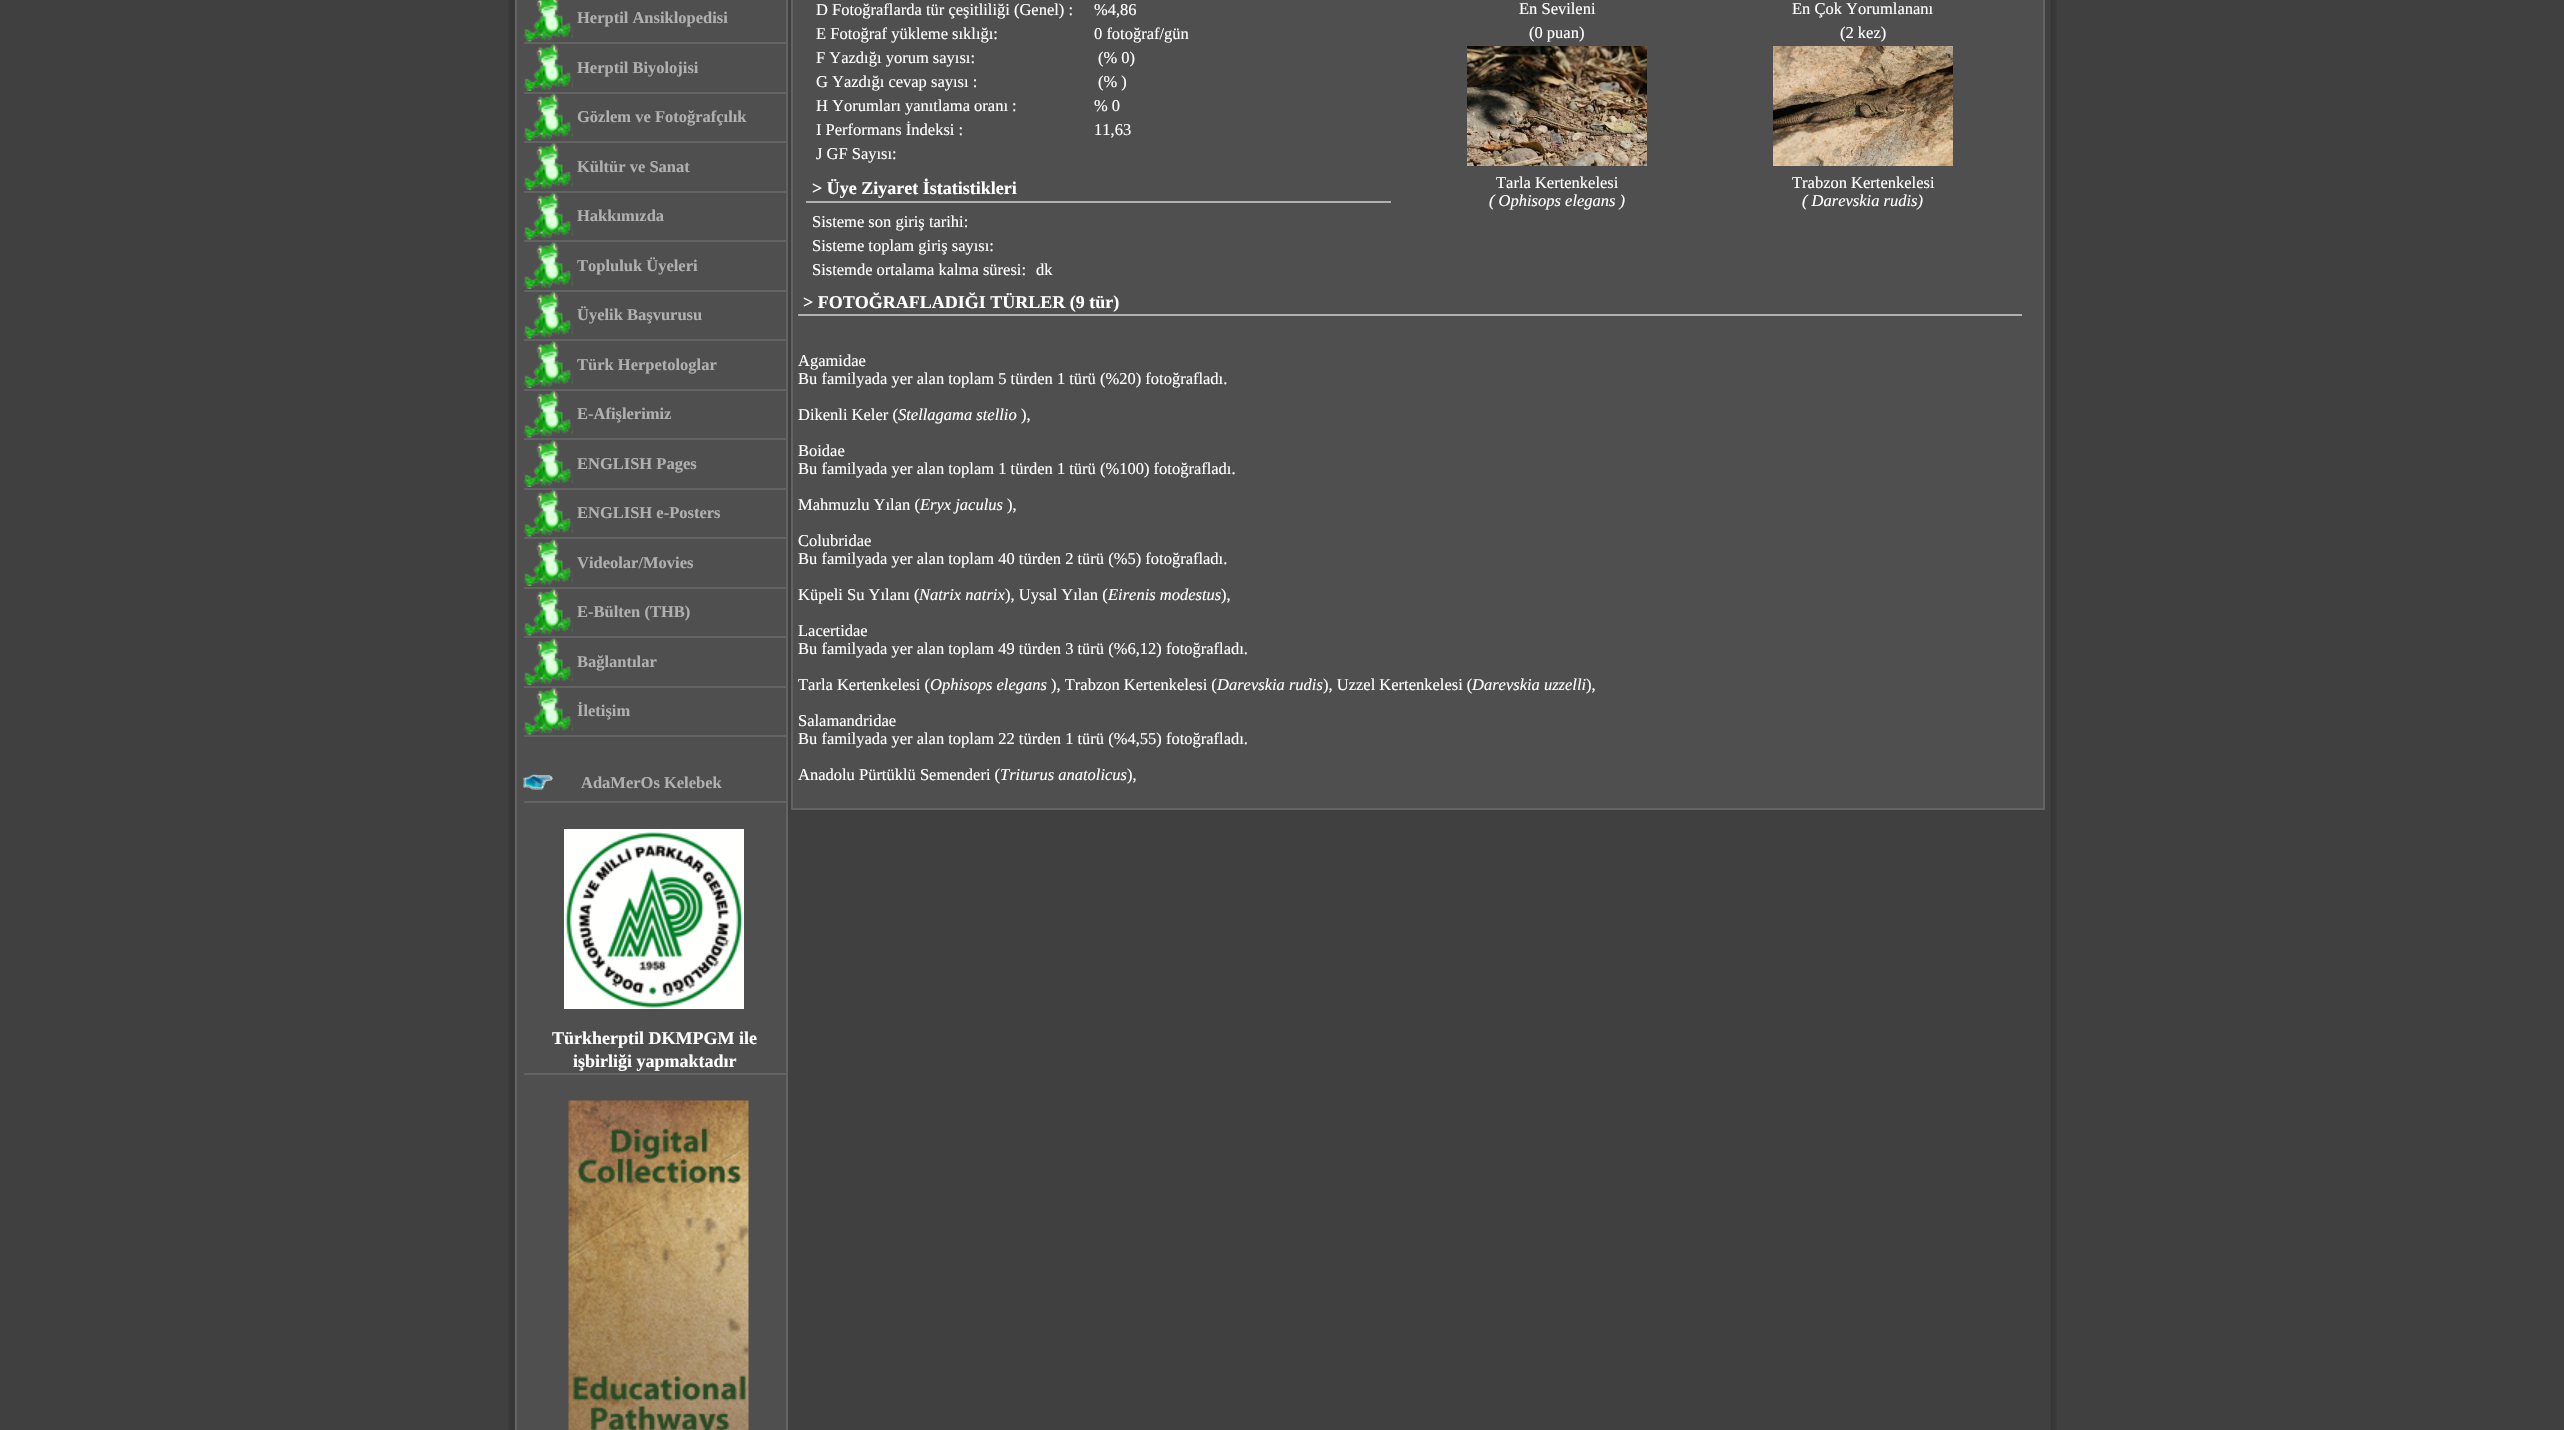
#include "include/core/SkBlurTypes.h"
#include "include/core/SkCanvas.h"
#include "include/core/SkData.h"
#include "include/core/SkFont.h"
#include "include/core/SkFontMgr.h"
#include "include/core/SkImage.h"
#include "include/core/SkMaskFilter.h"
#include "include/core/SkPaint.h"
#include "include/core/SkPathBuilder.h"
#include "include/core/SkTextBlob.h"
#include "include/effects/SkDashPathEffect.h"
#include "include/effects/SkGradientShader.h"
#include "include/utils/SkParsePath.h"

extern sk_sp<SkFontMgr> fontMgr;

void draw(SkCanvas* canvas) {
    SkPaint p;
    p.setAntiAlias(true);
    auto font = [&](const char* family, int weight, float size, bool italic = false) {
        SkFontStyle style(weight, SkFontStyle::kNormal_Width,
            italic ? SkFontStyle::kItalic_Slant : SkFontStyle::kUpright_Slant);
        SkFont result(fontMgr->matchFamilyStyle(family, style), size);
        result.setSubpixel(true);
        return result;
    };
    auto drawPhoto = [&](const char* path, float l, float t, float r, float b) {
        auto image = SkImages::DeferredFromEncodedData(SkData::MakeFromFileName(path));
        canvas->drawImageRect(image, SkRect::MakeLTRB(l, t, r, b), SkSamplingOptions());
    };
    canvas->clear(0xFF404040);
    drawPhoto("media/1.png", 508, 0, 515, 1430);
    p.setColor(0xFF4F4F4F);
    canvas->drawRect(SkRect::MakeLTRB(516, -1, 787, 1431), p);
    p.setStyle(SkPaint::kStroke_Style);
    p.setStrokeWidth(2);
    p.setColor(0xFF636363);
    canvas->drawRect(SkRect::MakeLTRB(516, -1, 787, 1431), p);
    drawPhoto("media/2.png", 523, 0, 573, 42);
    auto font1 = font("Liberation Serif", 700, 16.5f);
    p.setStyle(SkPaint::kFill_Style);
    p.setColor(0xFFB0B0B0);
    canvas->drawString("Herptil Ansiklopedisi", 577, 23, font1, p);
    p.setColor(0xFF636363);
    canvas->drawRect(SkRect::MakeLTRB(524, 42, 786, 44), p);
    drawPhoto("media/3.png", 523, 44, 573, 91);
    p.setColor(0xFFB0B0B0);
    canvas->drawString("Herptil Biyolojisi", 577, 73, font1, p);
    p.setColor(0xFF636363);
    canvas->drawRect(SkRect::MakeLTRB(524, 92, 786, 94), p);
    drawPhoto("media/4.png", 523, 93, 573, 141);
    p.setColor(0xFFB0B0B0);
    canvas->drawString("Gözlem ve Fotoğrafçılık", 577, 122, font1, p);
    p.setColor(0xFF636363);
    canvas->drawRect(SkRect::MakeLTRB(524, 141, 786, 143), p);
    drawPhoto("media/5.png", 523, 143, 573, 190);
    p.setColor(0xFFB0B0B0);
    canvas->drawString("Kültür ve Sanat", 577, 172, font1, p);
    p.setColor(0xFF636363);
    canvas->drawRect(SkRect::MakeLTRB(524, 191, 786, 193), p);
    drawPhoto("media/6.png", 523, 192, 573, 240);
    p.setColor(0xFFB0B0B0);
    canvas->drawString("Hakkımızda", 577, 221, font1, p);
    p.setColor(0xFF636363);
    canvas->drawRect(SkRect::MakeLTRB(524, 240, 786, 242), p);
    drawPhoto("media/7.png", 523, 242, 573, 289);
    p.setColor(0xFFB0B0B0);
    canvas->drawString("Topluluk Üyeleri", 577, 271, font1, p);
    p.setColor(0xFF636363);
    canvas->drawRect(SkRect::MakeLTRB(524, 290, 786, 292), p);
    drawPhoto("media/8.png", 523, 291, 573, 339);
    p.setColor(0xFFB0B0B0);
    canvas->drawString("Üyelik Başvurusu", 577, 320, font1, p);
    p.setColor(0xFF636363);
    canvas->drawRect(SkRect::MakeLTRB(524, 339, 786, 341), p);
    drawPhoto("media/9.png", 523, 341, 573, 388);
    p.setColor(0xFFB0B0B0);
    canvas->drawString("Türk Herpetologlar", 577, 370, font1, p);
    p.setColor(0xFF636363);
    canvas->drawRect(SkRect::MakeLTRB(524, 389, 786, 391), p);
    drawPhoto("media/6.png", 523, 390, 573, 438);
    p.setColor(0xFFB0B0B0);
    canvas->drawString("E-Afişlerimiz", 577, 419, font1, p);
    p.setColor(0xFF636363);
    canvas->drawRect(SkRect::MakeLTRB(524, 438, 786, 440), p);
    drawPhoto("media/10.png", 523, 440, 573, 487);
    p.setColor(0xFFB0B0B0);
    canvas->drawString("ENGLISH Pages", 577, 469, font1, p);
    p.setColor(0xFF636363);
    canvas->drawRect(SkRect::MakeLTRB(524, 488, 786, 490), p);
    drawPhoto("media/11.png", 523, 489, 573, 537);
    p.setColor(0xFFB0B0B0);
    canvas->drawString("ENGLISH e-Posters", 577, 518, font1, p);
    p.setColor(0xFF636363);
    canvas->drawRect(SkRect::MakeLTRB(524, 537, 786, 539), p);
    drawPhoto("media/12.png", 523, 539, 573, 586);
    p.setColor(0xFFB0B0B0);
    canvas->drawString("Videolar/Movies", 577, 568, font1, p);
    p.setColor(0xFF636363);
    canvas->drawRect(SkRect::MakeLTRB(524, 587, 786, 589), p);
    drawPhoto("media/13.png", 523, 588, 573, 636);
    p.setColor(0xFFB0B0B0);
    canvas->drawString("E-Bülten (THB)", 577, 617, font1, p);
    p.setColor(0xFF636363);
    canvas->drawRect(SkRect::MakeLTRB(524, 636, 786, 638), p);
    drawPhoto("media/14.png", 523, 638, 573, 685);
    p.setColor(0xFFB0B0B0);
    canvas->drawString("Bağlantılar", 577, 667, font1, p);
    p.setColor(0xFF636363);
    canvas->drawRect(SkRect::MakeLTRB(524, 686, 786, 688), p);
    drawPhoto("media/15.png", 523, 687, 573, 735);
    p.setColor(0xFFB0B0B0);
    canvas->drawString("İletişim", 577, 716, font1, p);
    p.setColor(0xFF636363);
    canvas->drawRect(SkRect::MakeLTRB(524, 735, 786, 737), p);
    drawPhoto("media/16.png", 523, 774, 553, 790);
    p.setColor(0xFFB0B0B0);
    canvas->drawString("AdaMerOs Kelebek", 581, 788, font1, p);
    p.setColor(0xFF636363);
    canvas->drawRect(SkRect::MakeLTRB(524, 801, 786, 803), p);
    drawPhoto("media/17.png", 564, 829, 744, 1009);
    auto font2 = font("Liberation Serif", 700, 18);
    p.setColor(0xFFFFFFFF);
    canvas->drawString("Türkherptil DKMPGM ile", 552, 1044, font2, p);
    canvas->drawString("işbirliği yapmaktadır", 573, 1067, font2, p);
    p.setColor(0xFF636363);
    canvas->drawRect(SkRect::MakeLTRB(524, 1073, 786, 1075), p);
    drawPhoto("media/18.png", 568, 1100, 749, 1430);
    p.setColor(0xFF4F4F4F);
    canvas->drawRect(SkRect::MakeLTRB(792, -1, 2044, 809), p);
    p.setStyle(SkPaint::kStroke_Style);
    p.setColor(0xFF636363);
    canvas->drawRect(SkRect::MakeLTRB(792, -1, 2044, 809), p);
    auto font3 = font("Liberation Serif", 400, 16.5f);
    p.setStyle(SkPaint::kFill_Style);
    p.setColor(0xFFFFFFFF);
    {
        const struct { const char* s; float x, y; } items[] = {
            {"D Fotoğraflarda tür çeşitliliği (Genel) :", 816, 15},
            {"%4,86", 1094, 15},
            {"E Fotoğraf yükleme sıklığı:", 816, 39},
            {"0 fotoğraf/gün", 1094, 39},
            {"F Yazdığı yorum sayısı:", 816, 63},
            {"(% 0)", 1098, 63},
            {"G Yazdığı cevap sayısı :", 816, 87},
            {"(% )", 1098, 87},
            {"H Yorumları yanıtlama oranı :", 816, 111},
            {"% 0", 1094, 111},
            {"I Performans İndeksi :", 816, 135},
            {"11,63", 1094, 135},
            {"J GF Sayısı:", 816, 159},
        };
        for (auto [s, x, y] : items) {
            canvas->drawString(s, x, y, font3, p);
        }
    }
    p.setColor(0xFFB0B0B0);
    canvas->drawRect(SkRect::MakeLTRB(806, 201, 1391, 203), p);
    p.setColor(0xFFFFFFFF);
    canvas->drawString("> Üye Ziyaret İstatistikleri", 812, 194, font2, p);
    {
        const struct { const char* s; float x, y; } items[] = {
            {"Sisteme son giriş tarihi:", 812, 227},
            {"Sisteme toplam giriş sayısı:", 812, 251},
            {"Sistemde ortalama kalma süresi:", 812, 275},
            {"dk", 1036, 275},
            {"En Sevileni", 1519, 14},
            {"(0 puan)", 1529, 38},
        };
        for (auto [s, x, y] : items) {
            canvas->drawString(s, x, y, font3, p);
        }
    }
    drawPhoto("media/19.png", 1467, 46, 1647, 166);
    canvas->drawString("Tarla Kertenkelesi", 1496, 188, font3, p);
    auto font4 = font("Liberation Serif", 400, 16.5f, true);
    canvas->drawString("( Ophisops elegans )", 1489, 206, font4, p);
    canvas->drawString("En Çok Yorumlananı", 1792, 14, font3, p);
    canvas->drawString("(2 kez)", 1840, 38, font3, p);
    drawPhoto("media/20.png", 1773, 46, 1953, 166);
    canvas->drawString("Trabzon Kertenkelesi", 1792, 188, font3, p);
    canvas->drawString("( Darevskia rudis)", 1802, 206, font4, p);
    p.setColor(0xFFB0B0B0);
    canvas->drawRect(SkRect::MakeLTRB(798, 314, 2022, 316), p);
    p.setColor(0xFFFFFFFF);
    canvas->drawString("> FOTOĞRAFLADIĞI TÜRLER (9 tür)", 803, 308, font2, p);
    {
        const struct { const char* s; float x, y; } items[] = {
            {"Agamidae", 798, 366},
            {"Bu familyada yer alan toplam 5 türden 1 türü (%20) fotoğrafladı.", 798, 384},
            {"Dikenli Keler (", 798, 420},
        };
        for (auto [s, x, y] : items) {
            canvas->drawString(s, x, y, font3, p);
        }
    }
    canvas->drawString("Stellagama stellio", 898, 420, font4, p);
    {
        const struct { const char* s; float x, y; } items[] = {
            {"),", 1021, 420},
            {"Boidae", 798, 456},
            {"Bu familyada yer alan toplam 1 türden 1 türü (%100) fotoğrafladı.", 798, 474},
            {"Mahmuzlu Yılan (", 798, 510},
        };
        for (auto [s, x, y] : items) {
            canvas->drawString(s, x, y, font3, p);
        }
    }
    canvas->drawString("Eryx jaculus", 920, 510, font4, p);
    {
        const struct { const char* s; float x, y; } items[] = {
            {"),", 1007, 510},
            {"Colubridae", 798, 546},
            {"Bu familyada yer alan toplam 40 türden 2 türü (%5) fotoğrafladı.", 798, 564},
            {"Küpeli Su Yılanı (", 798, 600},
        };
        for (auto [s, x, y] : items) {
            canvas->drawString(s, x, y, font3, p);
        }
    }
    canvas->drawString("Natrix natrix", 919, 600, font4, p);
    canvas->drawString("), Uysal Yılan (", 1005, 600, font3, p);
    canvas->drawString("Eirenis modestus", 1108, 600, font4, p);
    {
        const struct { const char* s; float x, y; } items[] = {
            {"),", 1221, 600},
            {"Lacertidae", 798, 636},
            {"Bu familyada yer alan toplam 49 türden 3 türü (%6,12) fotoğrafladı.", 798, 654},
            {"Tarla Kertenkelesi (", 798, 690},
        };
        for (auto [s, x, y] : items) {
            canvas->drawString(s, x, y, font3, p);
        }
    }
    canvas->drawString("Ophisops elegans", 930, 690, font4, p);
    canvas->drawString("), Trabzon Kertenkelesi (", 1051, 690, font3, p);
    canvas->drawString("Darevskia rudis", 1217, 690, font4, p);
    canvas->drawString("), Uzzel Kertenkelesi (", 1323, 690, font3, p);
    canvas->drawString("Darevskia uzzelli", 1472, 690, font4, p);
    {
        const struct { const char* s; float x, y; } items[] = {
            {"),", 1586, 690},
            {"Salamandridae", 798, 726},
            {"Bu familyada yer alan toplam 22 türden 1 türü (%4,55) fotoğrafladı.", 798, 744},
            {"Anadolu Pürtüklü Semenderi (", 798, 780},
        };
        for (auto [s, x, y] : items) {
            canvas->drawString(s, x, y, font3, p);
        }
    }
    canvas->drawString("Triturus anatolicus", 1000, 780, font4, p);
    canvas->drawString("),", 1127, 780, font3, p);
    drawPhoto("media/21.png", 2050, 0, 2057, 1430);
}
